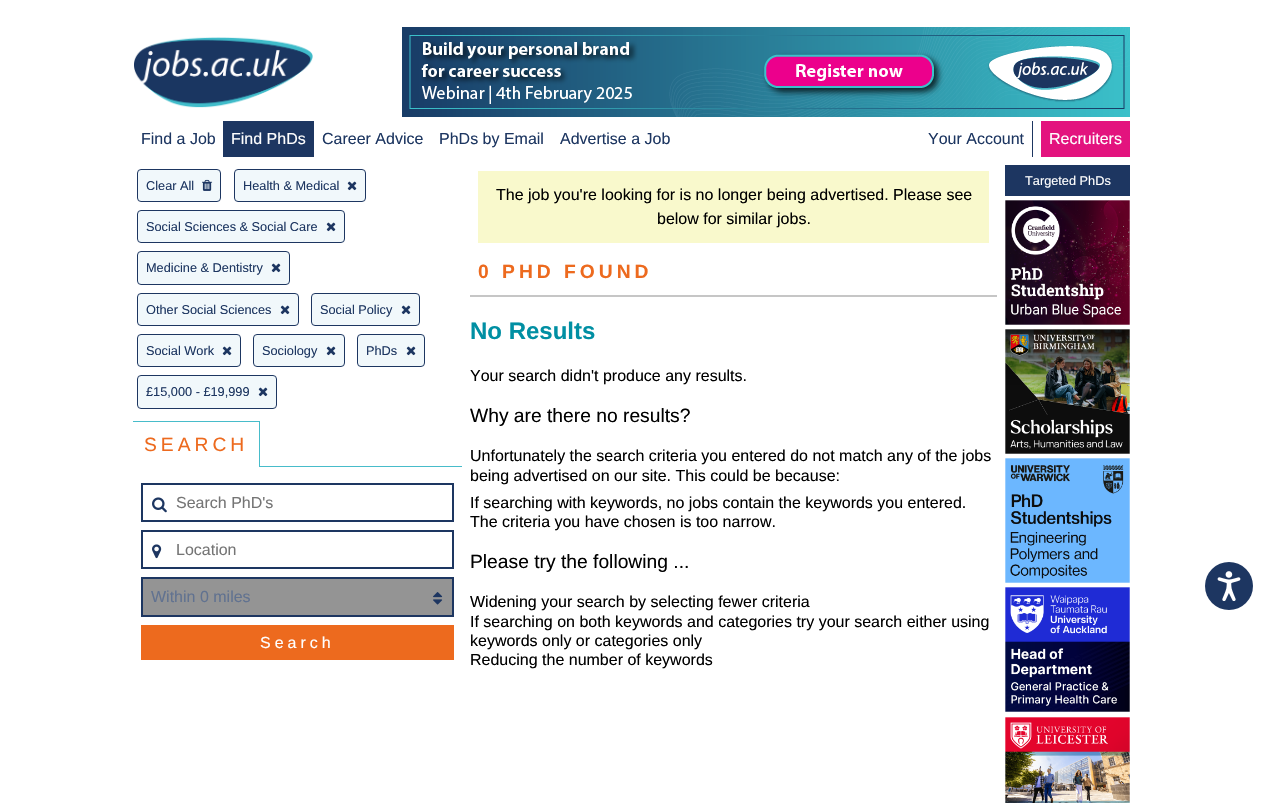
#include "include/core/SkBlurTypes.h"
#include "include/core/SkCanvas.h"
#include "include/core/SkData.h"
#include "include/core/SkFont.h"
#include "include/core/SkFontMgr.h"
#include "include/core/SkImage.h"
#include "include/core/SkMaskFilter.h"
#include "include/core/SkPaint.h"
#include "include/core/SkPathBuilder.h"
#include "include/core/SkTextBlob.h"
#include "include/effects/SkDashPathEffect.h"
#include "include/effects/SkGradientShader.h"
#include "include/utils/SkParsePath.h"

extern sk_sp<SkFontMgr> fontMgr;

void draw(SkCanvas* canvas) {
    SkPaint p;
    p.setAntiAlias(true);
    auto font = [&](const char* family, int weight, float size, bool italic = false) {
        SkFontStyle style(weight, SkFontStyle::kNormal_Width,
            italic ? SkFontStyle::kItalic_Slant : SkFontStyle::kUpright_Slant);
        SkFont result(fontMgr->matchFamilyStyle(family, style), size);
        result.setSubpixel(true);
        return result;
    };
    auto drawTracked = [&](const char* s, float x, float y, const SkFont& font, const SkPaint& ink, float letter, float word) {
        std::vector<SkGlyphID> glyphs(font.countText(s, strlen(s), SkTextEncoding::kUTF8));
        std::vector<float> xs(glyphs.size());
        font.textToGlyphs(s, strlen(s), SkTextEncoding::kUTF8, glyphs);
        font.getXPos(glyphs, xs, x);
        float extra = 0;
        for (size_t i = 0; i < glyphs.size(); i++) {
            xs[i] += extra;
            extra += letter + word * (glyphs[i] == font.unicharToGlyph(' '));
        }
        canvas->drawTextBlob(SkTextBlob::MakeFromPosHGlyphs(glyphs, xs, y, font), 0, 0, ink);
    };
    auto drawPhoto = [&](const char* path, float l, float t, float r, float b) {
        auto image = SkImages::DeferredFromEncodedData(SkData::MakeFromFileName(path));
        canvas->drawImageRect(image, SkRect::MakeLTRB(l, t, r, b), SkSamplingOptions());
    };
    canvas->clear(0xFFFFFFFF);
    drawPhoto("media/1.png", 134, 37, 313, 108);
    drawPhoto("media/2.png", 402, 27, 1130, 117);
    auto font1 = font("Liberation Sans", 400, 16);
    p.setColor(0xFF1D3661);
    canvas->drawString("Find a Job", 141, 144, font1, p);
    canvas->drawRect(SkRect::MakeLTRB(223, 121, 314, 157), p);
    p.setColor(0xFFFFFFFF);
    canvas->drawString("Find PhDs", 231, 144, font1, p);
    p.setColor(0xFF1D3661);
    {
        const struct { const char* s; float x, y; } items[] = {
            {"Career Advice", 322, 144},
            {"PhDs by Email", 439, 144},
            {"Advertise a Job", 560, 144},
        };
        for (auto [s, x, y] : items) {
            canvas->drawString(s, x, y, font1, p);
        }
    }
    canvas->drawRect(SkRect::MakeLTRB(1032, 121, 1033, 157), p);
    canvas->drawString("Your Account", 928, 144, font1, p);
    p.setColor(0xFFE3137E);
    canvas->drawRect(SkRect::MakeLTRB(1041, 121, 1130, 157), p);
    p.setColor(0xFFFFFFFF);
    canvas->drawString("Recruiters", 1049, 144, font1, p);
    p.setColor(0xFFF1F8FB);
    canvas->drawRoundRect(SkRect::MakeLTRB(137.5f, 169.5f, 220.5f, 201.5f), 3.5f, 3.5f, p);
    p.setStyle(SkPaint::kStroke_Style);
    p.setStrokeWidth(1);
    p.setColor(0xFF1D3661);
    canvas->drawRoundRect(SkRect::MakeLTRB(137.5f, 169.5f, 220.5f, 201.5f), 3.5f, 3.5f, p);
    auto font2 = font("Liberation Sans", 400, 12.75f);
    p.setStyle(SkPaint::kFill_Style);
    canvas->drawString("Clear All", 146, 190, font2, p);
    drawPhoto("media/3.png", 202, 179, 213, 191);
    p.setColor(0xFFF1F8FB);
    canvas->drawRoundRect(SkRect::MakeLTRB(234.5f, 169.5f, 365.5f, 201.5f), 3.5f, 3.5f, p);
    p.setStyle(SkPaint::kStroke_Style);
    p.setColor(0xFF1D3661);
    canvas->drawRoundRect(SkRect::MakeLTRB(234.5f, 169.5f, 365.5f, 201.5f), 3.5f, 3.5f, p);
    p.setStyle(SkPaint::kFill_Style);
    canvas->drawString("Health & Medical", 243, 190, font2, p);
    drawPhoto("media/4.png", 347, 181, 357, 191);
    p.setColor(0xFFF1F8FB);
    canvas->drawRoundRect(SkRect::MakeLTRB(137.5f, 210.5f, 344.5f, 242.5f), 3.5f, 3.5f, p);
    p.setStyle(SkPaint::kStroke_Style);
    p.setColor(0xFF1D3661);
    canvas->drawRoundRect(SkRect::MakeLTRB(137.5f, 210.5f, 344.5f, 242.5f), 3.5f, 3.5f, p);
    p.setStyle(SkPaint::kFill_Style);
    canvas->drawString("Social Sciences & Social Care", 146, 231, font2, p);
    drawPhoto("media/4.png", 326, 222, 336, 232);
    p.setColor(0xFFF1F8FB);
    canvas->drawRoundRect(SkRect::MakeLTRB(137.5f, 251.5f, 289.5f, 284.5f), 3.5f, 3.5f, p);
    p.setStyle(SkPaint::kStroke_Style);
    p.setColor(0xFF1D3661);
    canvas->drawRoundRect(SkRect::MakeLTRB(137.5f, 251.5f, 289.5f, 284.5f), 3.5f, 3.5f, p);
    p.setStyle(SkPaint::kFill_Style);
    canvas->drawString("Medicine & Dentistry", 146, 272, font2, p);
    drawPhoto("media/4.png", 271, 263, 281, 273);
    p.setColor(0xFFF1F8FB);
    canvas->drawRoundRect(SkRect::MakeLTRB(137.5f, 293.5f, 298.5f, 325.5f), 3.5f, 3.5f, p);
    p.setStyle(SkPaint::kStroke_Style);
    p.setColor(0xFF1D3661);
    canvas->drawRoundRect(SkRect::MakeLTRB(137.5f, 293.5f, 298.5f, 325.5f), 3.5f, 3.5f, p);
    p.setStyle(SkPaint::kFill_Style);
    canvas->drawString("Other Social Sciences", 146, 314, font2, p);
    drawPhoto("media/4.png", 280, 305, 290, 315);
    p.setColor(0xFFF1F8FB);
    canvas->drawRoundRect(SkRect::MakeLTRB(311.5f, 293.5f, 419.5f, 325.5f), 3.5f, 3.5f, p);
    p.setStyle(SkPaint::kStroke_Style);
    p.setColor(0xFF1D3661);
    canvas->drawRoundRect(SkRect::MakeLTRB(311.5f, 293.5f, 419.5f, 325.5f), 3.5f, 3.5f, p);
    p.setStyle(SkPaint::kFill_Style);
    canvas->drawString("Social Policy", 320, 314, font2, p);
    drawPhoto("media/4.png", 401, 305, 411, 315);
    p.setColor(0xFFF1F8FB);
    canvas->drawRoundRect(SkRect::MakeLTRB(137.5f, 334.5f, 240.5f, 366.5f), 3.5f, 3.5f, p);
    p.setStyle(SkPaint::kStroke_Style);
    p.setColor(0xFF1D3661);
    canvas->drawRoundRect(SkRect::MakeLTRB(137.5f, 334.5f, 240.5f, 366.5f), 3.5f, 3.5f, p);
    p.setStyle(SkPaint::kFill_Style);
    canvas->drawString("Social Work", 146, 355, font2, p);
    drawPhoto("media/4.png", 222, 346, 232, 356);
    p.setColor(0xFFF1F8FB);
    canvas->drawRoundRect(SkRect::MakeLTRB(253.5f, 334.5f, 344.5f, 366.5f), 3.5f, 3.5f, p);
    p.setStyle(SkPaint::kStroke_Style);
    p.setColor(0xFF1D3661);
    canvas->drawRoundRect(SkRect::MakeLTRB(253.5f, 334.5f, 344.5f, 366.5f), 3.5f, 3.5f, p);
    p.setStyle(SkPaint::kFill_Style);
    canvas->drawString("Sociology", 262, 355, font2, p);
    drawPhoto("media/4.png", 326, 346, 336, 356);
    p.setColor(0xFFF1F8FB);
    canvas->drawRoundRect(SkRect::MakeLTRB(357.5f, 334.5f, 424.5f, 366.5f), 3.5f, 3.5f, p);
    p.setStyle(SkPaint::kStroke_Style);
    p.setColor(0xFF1D3661);
    canvas->drawRoundRect(SkRect::MakeLTRB(357.5f, 334.5f, 424.5f, 366.5f), 3.5f, 3.5f, p);
    p.setStyle(SkPaint::kFill_Style);
    canvas->drawString("PhDs", 366, 355, font2, p);
    drawPhoto("media/4.png", 406, 346, 416, 356);
    p.setColor(0xFFF1F8FB);
    canvas->drawRoundRect(SkRect::MakeLTRB(137.5f, 375.5f, 276.5f, 408.5f), 3.5f, 3.5f, p);
    p.setStyle(SkPaint::kStroke_Style);
    p.setColor(0xFF1D3661);
    canvas->drawRoundRect(SkRect::MakeLTRB(137.5f, 375.5f, 276.5f, 408.5f), 3.5f, 3.5f, p);
    p.setStyle(SkPaint::kFill_Style);
    canvas->drawString("£15,000 - £19,999", 146, 396, font2, p);
    drawPhoto("media/4.png", 258, 387, 268, 397);
    {
        const struct { float l, t, r, b; SkColor color; } items[] = {
            {260, 466, 462, 467, 0xFF47BCCA},
            {133, 421, 260, 422, 0xFF47BCCA},
            {259, 421, 260, 467, 0xFF47BCCA},
        };
        for (auto [l, t, r, b, color] : items) {
            p.setColor(color);
            canvas->drawRect(SkRect::MakeLTRB(l, t, r, b), p);
        }
    }
    auto font3 = font("Liberation Sans", 400, 19.25f);
    p.setColor(0xFFED6A1E);
    drawTracked("SEARCH", 144, 451, font3, p, 4, 0);
    p.setStyle(SkPaint::kStroke_Style);
    p.setStrokeWidth(2);
    p.setColor(0xFF1D3661);
    canvas->drawRect(SkRect::MakeLTRB(142, 484, 453, 521), p);
    drawPhoto("media/5.png", 152, 497, 167, 513);
    p.setStyle(SkPaint::kFill_Style);
    p.setColor(0xFF757575);
    canvas->drawString("Search PhD's", 176, 508, font1, p);
    p.setStyle(SkPaint::kStroke_Style);
    p.setColor(0xFF1D3661);
    canvas->drawRect(SkRect::MakeLTRB(142, 531, 453, 568), p);
    drawPhoto("media/6.png", 152, 544, 162, 559);
    p.setStyle(SkPaint::kFill_Style);
    p.setColor(0xFF757575);
    canvas->drawString("Location", 176, 555, font1, p);
    p.setStyle(SkPaint::kStroke_Style);
    p.setColor(0xFF1D3661);
    canvas->drawRect(SkRect::MakeLTRB(142, 578, 453, 616), p);
    p.setStyle(SkPaint::kFill_Style);
    p.setColor(0xFF949494);
    canvas->drawRect(SkRect::MakeLTRB(143, 579, 452, 615), p);
    p.setColor(0xFF617290);
    canvas->drawString("Within 0 miles", 151, 602, font1, p);
    drawPhoto("media/7.png", 433, 592, 443, 605);
    p.setColor(0xFFED6A1E);
    canvas->drawRect(SkRect::MakeLTRB(141, 625, 454, 660), p);
    p.setColor(0xFFFFFFFF);
    drawTracked("Search", 260, 648, font1, p, 4, 0);
    p.setColor(0xFFF9F9CC);
    canvas->drawRect(SkRect::MakeLTRB(478, 171, 989, 243), p);
    p.setColor(0xFF000000);
    canvas->drawString("The job you're looking for is no longer being advertised. Please see", 496, 200, font1, p);
    canvas->drawString("below for similar jobs.", 657, 224, font1, p);
    auto font4 = font("Liberation Sans", 700, 19.25f);
    p.setColor(0xFFED6A1E);
    drawTracked("0 PHD FOUND", 478, 278, font4, p, 4, 0);
    p.setColor(0xFFC6C6C6);
    canvas->drawRect(SkRect::MakeLTRB(470, 295, 997, 297), p);
    auto font5 = font("Liberation Sans", 700, 24);
    p.setColor(0xFF008FA3);
    canvas->drawString("No Results", 470, 339, font5, p);
    p.setColor(0xFF000000);
    canvas->drawString("Your search didn't produce any results.", 470, 381, font1, p);
    canvas->drawString("Why are there no results?", 470, 422, font3, p);
    {
        const struct { const char* s; float x, y; } items[] = {
            {"Unfortunately the search criteria you entered do not match any of the jobs", 470, 461},
            {"being advertised on our site. This could be because:", 470, 481},
            {"If searching with keywords, no jobs contain the keywords you entered.", 470, 508},
            {"The criteria you have chosen is too narrow.", 470, 527},
        };
        for (auto [s, x, y] : items) {
            canvas->drawString(s, x, y, font1, p);
        }
    }
    canvas->drawString("Please try the following ...", 470, 568, font3, p);
    {
        const struct { const char* s; float x, y; } items[] = {
            {"Widening your search by selecting fewer criteria", 470, 607},
            {"If searching on both keywords and categories try your search either using", 470, 627},
            {"keywords only or categories only", 470, 646},
            {"Reducing the number of keywords", 470, 665},
        };
        for (auto [s, x, y] : items) {
            canvas->drawString(s, x, y, font1, p);
        }
    }
    p.setColor(0xFF1D3661);
    canvas->drawRect(SkRect::MakeLTRB(1005, 165, 1130, 196), p);
    p.setColor(0xFFFFFFFF);
    canvas->drawString("Targeted PhDs", 1025, 185, font2, p);
    drawPhoto("media/8.png", 1005, 200, 1130, 325);
    drawPhoto("media/9.png", 1005, 329, 1130, 454);
    drawPhoto("media/10.png", 1005, 458, 1130, 583);
    drawPhoto("media/11.png", 1005, 587, 1130, 712);
    drawPhoto("media/12.png", 1005, 717, 1130, 803);
    p.setColor(0xFF1D3661);
    canvas->drawCircle(1229, 586, 24, p);
    drawPhoto("media/13.png", 1217, 571, 1241, 601);
}
